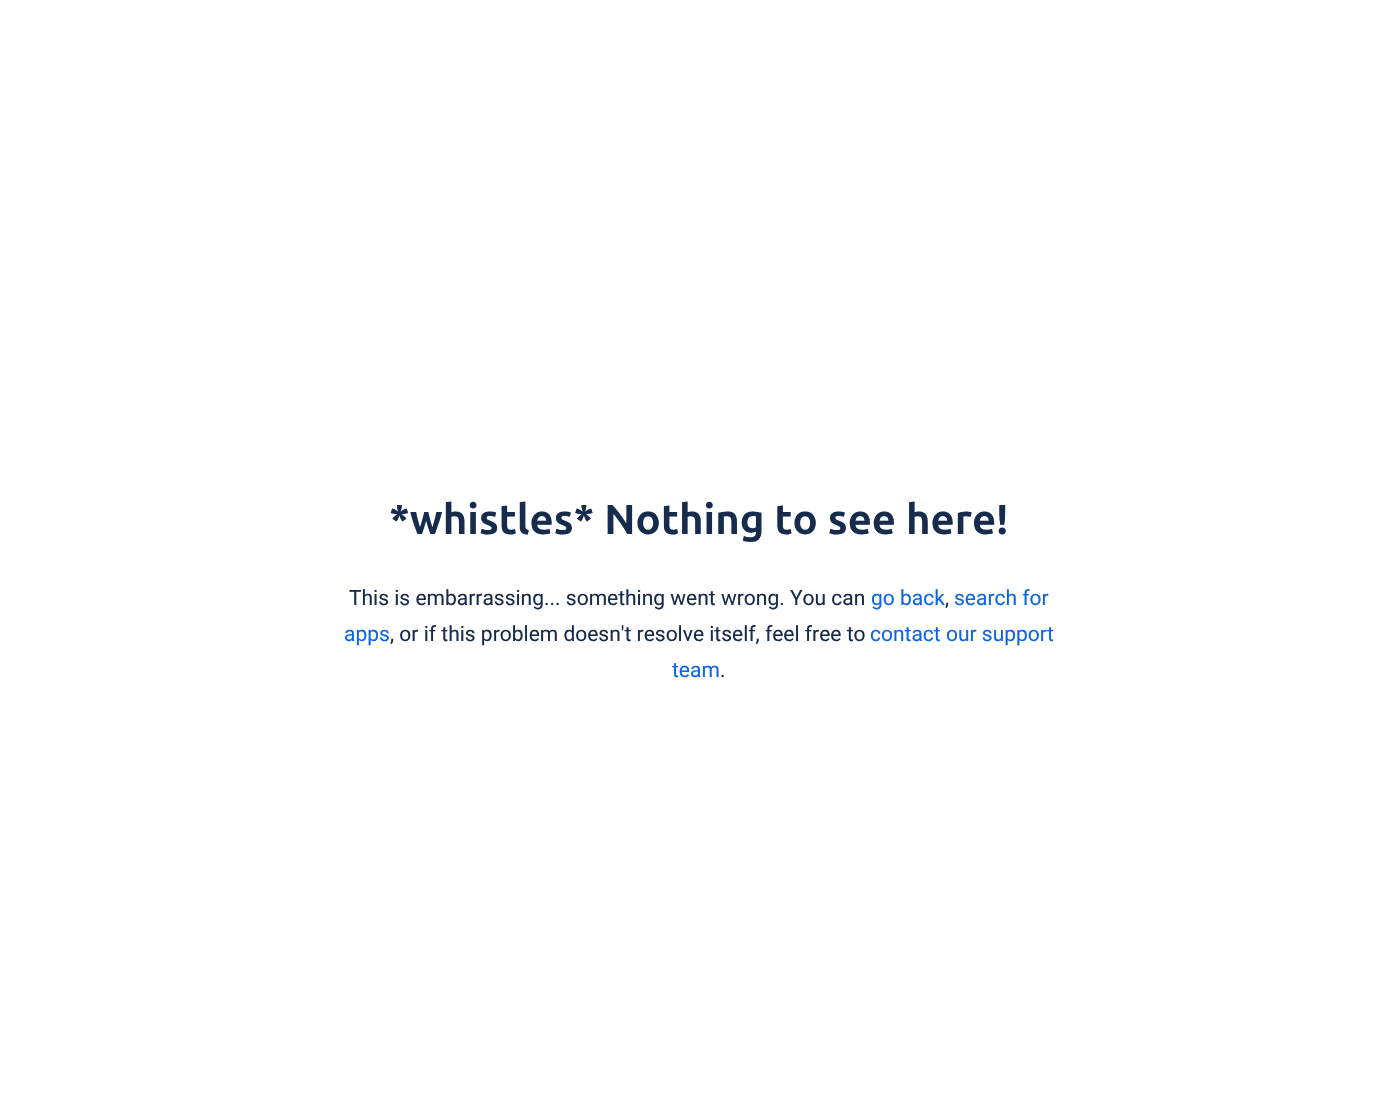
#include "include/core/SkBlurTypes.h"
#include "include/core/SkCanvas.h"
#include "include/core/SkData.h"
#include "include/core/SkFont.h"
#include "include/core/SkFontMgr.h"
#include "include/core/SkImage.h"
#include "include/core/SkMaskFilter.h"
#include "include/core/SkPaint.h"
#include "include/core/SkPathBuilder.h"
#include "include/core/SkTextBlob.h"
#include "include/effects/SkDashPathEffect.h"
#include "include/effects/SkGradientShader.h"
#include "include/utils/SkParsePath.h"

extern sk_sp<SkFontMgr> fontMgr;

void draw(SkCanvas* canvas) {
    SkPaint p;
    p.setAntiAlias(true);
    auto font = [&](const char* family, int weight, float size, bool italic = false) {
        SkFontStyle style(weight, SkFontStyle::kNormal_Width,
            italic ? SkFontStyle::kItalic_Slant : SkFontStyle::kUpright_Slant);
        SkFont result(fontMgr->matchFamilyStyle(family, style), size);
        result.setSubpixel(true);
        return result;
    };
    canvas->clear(0xFFFFFFFF);
    auto font1 = font("Ubuntu", 700, 42);
    p.setColor(0xFF172B4D);
    canvas->drawString("*whistles* Nothing to see here!", 389, 534, font1, p);
    auto font2 = font("Roboto", 400, 21);
    canvas->drawString("This is embarrassing... something went wrong. You can", 349, 605, font2, p);
    p.setColor(0xFF0C66E4);
    canvas->drawString("go back", 871, 605, font2, p);
    p.setColor(0xFF172B4D);
    canvas->drawString(",", 945, 605, font2, p);
    p.setColor(0xFF0C66E4);
    canvas->drawString("search for", 954, 605, font2, p);
    canvas->drawString("apps", 344, 641, font2, p);
    p.setColor(0xFF172B4D);
    canvas->drawString(", or if this problem doesn't resolve itself, feel free to", 390, 641, font2, p);
    p.setColor(0xFF0C66E4);
    canvas->drawString("contact our support", 870, 641, font2, p);
    canvas->drawString("team", 672, 677, font2, p);
    p.setColor(0xFF172B4D);
    canvas->drawString(".", 720, 677, font2, p);
}
